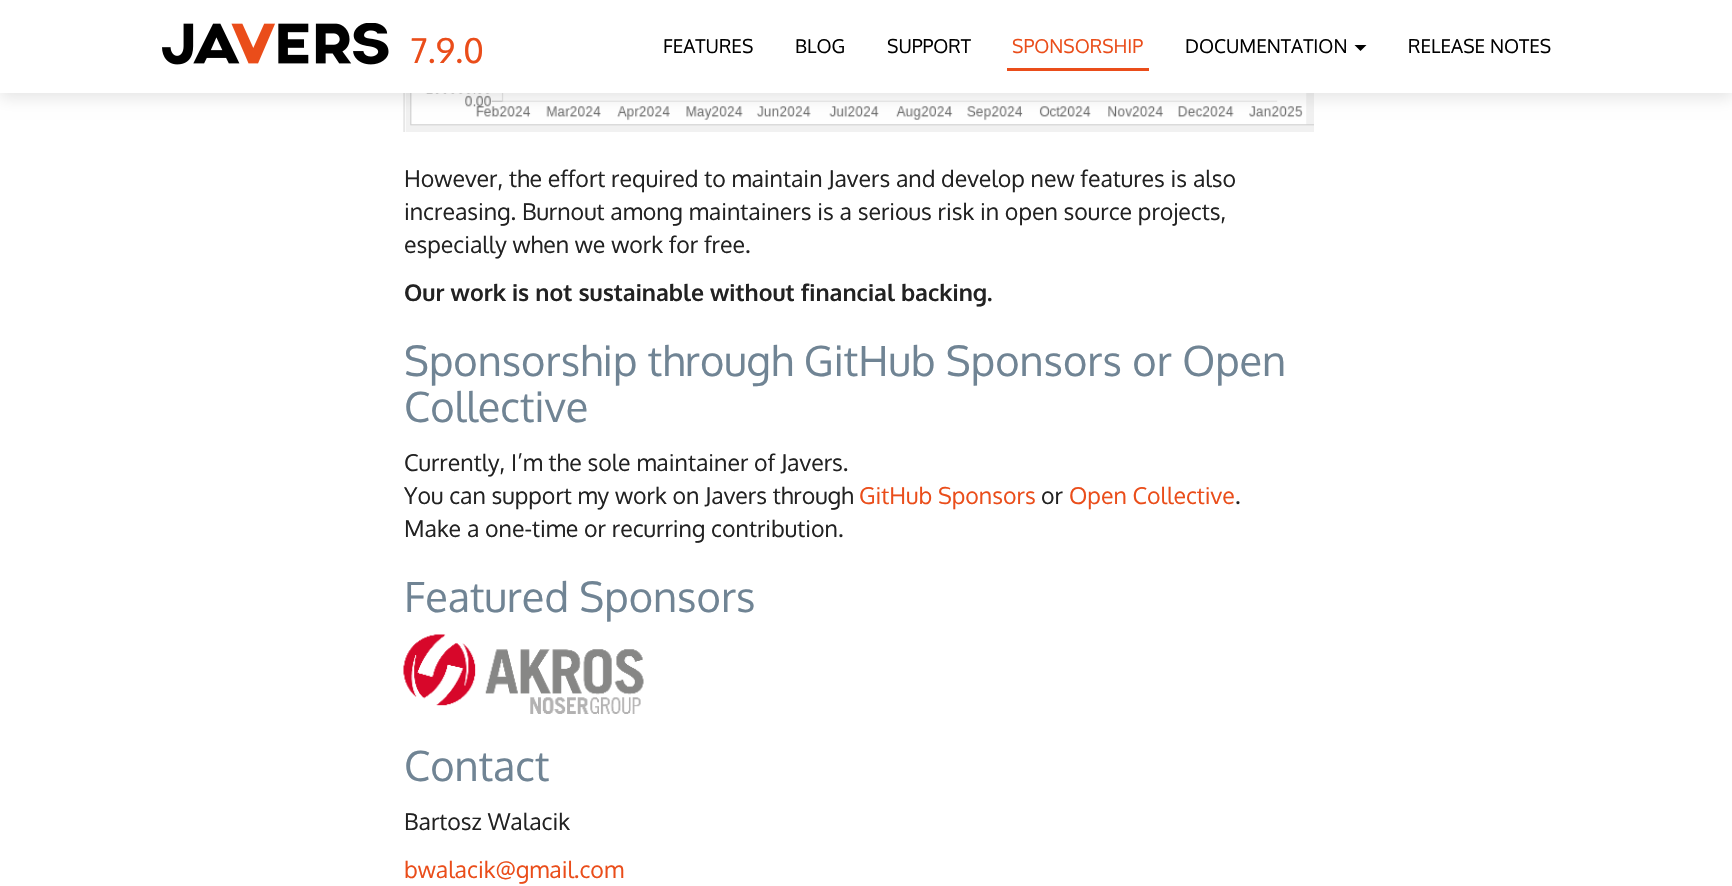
#include "include/core/SkBlurTypes.h"
#include "include/core/SkCanvas.h"
#include "include/core/SkData.h"
#include "include/core/SkFont.h"
#include "include/core/SkFontMgr.h"
#include "include/core/SkImage.h"
#include "include/core/SkMaskFilter.h"
#include "include/core/SkPaint.h"
#include "include/core/SkPathBuilder.h"
#include "include/core/SkTextBlob.h"
#include "include/effects/SkDashPathEffect.h"
#include "include/effects/SkGradientShader.h"
#include "include/utils/SkParsePath.h"

extern sk_sp<SkFontMgr> fontMgr;

void draw(SkCanvas* canvas) {
    SkPaint p;
    p.setAntiAlias(true);
    auto font = [&](const char* family, int weight, float size, bool italic = false) {
        SkFontStyle style(weight, SkFontStyle::kNormal_Width,
            italic ? SkFontStyle::kItalic_Slant : SkFontStyle::kUpright_Slant);
        SkFont result(fontMgr->matchFamilyStyle(family, style), size);
        result.setSubpixel(true);
        return result;
    };
    auto drawPhoto = [&](const char* path, float l, float t, float r, float b) {
        auto image = SkImages::DeferredFromEncodedData(SkData::MakeFromFileName(path));
        canvas->drawImageRect(image, SkRect::MakeLTRB(l, t, r, b), SkSamplingOptions());
    };
    canvas->clear(0xFFFFFFFF);
    drawPhoto("media/2.png", 403, 93, 1314, 132);
    p.setColor(0x1A000000);
    p.setMaskFilter(SkMaskFilter::MakeBlur(kNormal_SkBlurStyle, 7.5f));
    canvas->drawRect(SkRect::MakeLTRB(0, 5, 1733, 98), p);
    p.setMaskFilter(nullptr);
    p.setColor(0xFFFFFFFF);
    canvas->drawRect(SkRect::MakeLTRB(0, 0, 1732, 93), p);
    drawPhoto("media/1.png", 162, 23, 389, 65);
    auto font1 = font("Oxygen", 400, 34);
    p.setColor(0xFFEA4D1A);
    canvas->drawString("7.9.0", 410, 63, font1, p);
    auto font2 = font("Oxygen", 400, 19);
    p.setColor(0xFF000000);
    {
        const struct { const char* s; float x, y; } items[] = {
            {"FEATURES", 663, 53},
            {"BLOG", 795, 53},
            {"SUPPORT", 887, 53},
        };
        for (auto [s, x, y] : items) {
            canvas->drawString(s, x, y, font2, p);
        }
    }
    p.setColor(0xFFEA4D1A);
    canvas->drawRect(SkRect::MakeLTRB(1007, 68, 1149, 71), p);
    canvas->drawString("SPONSORSHIP", 1012, 53, font2, p);
    p.setColor(0xFF000000);
    canvas->drawString("DOCUMENTATION", 1185, 53, font2, p);
    canvas->drawPath(SkPathBuilder().moveTo(1354.5f, 45).lineTo(1366.5f, 45).lineTo(1360.5f, 51).close().detach(), p);
    canvas->drawString("RELEASE NOTES", 1408, 53, font2, p);
    auto font3 = font("Oxygen", 400, 23.1f);
    p.setColor(0xFF222222);
    {
        const struct { const char* s; float x, y; } items[] = {
            {"However, the effort required to maintain Javers and develop new features is also", 404, 187},
            {"increasing. Burnout among maintainers is a serious risk in open source projects,", 404, 220},
            {"especially when we work for free.", 404, 253},
        };
        for (auto [s, x, y] : items) {
            canvas->drawString(s, x, y, font3, p);
        }
    }
    auto font4 = font("Oxygen", 700, 23.1f);
    canvas->drawString("Our work is not sustainable without financial backing.", 404, 301, font4, p);
    auto font5 = font("Oxygen", 400, 41.6f);
    p.setColor(0xFF708494);
    canvas->drawString("Sponsorship through GitHub Sponsors or Open", 404, 376, font5, p);
    canvas->drawString("Collective", 404, 422, font5, p);
    p.setColor(0xFF222222);
    canvas->drawString("Currently, I’m the sole maintainer of Javers.", 404, 471, font3, p);
    canvas->drawString("You can support my work on Javers through", 404, 504, font3, p);
    p.setColor(0xFFEA4D1A);
    canvas->drawString("GitHub Sponsors", 859, 504, font3, p);
    p.setColor(0xFF222222);
    canvas->drawString("or", 1041, 504, font3, p);
    p.setColor(0xFFEA4D1A);
    canvas->drawString("Open Collective", 1069, 504, font3, p);
    p.setColor(0xFF222222);
    canvas->drawString(".", 1235, 504, font3, p);
    canvas->drawString("Make a one-time or recurring contribution.", 404, 537, font3, p);
    p.setColor(0xFF708494);
    canvas->drawString("Featured Sponsors", 404, 612, font5, p);
    drawPhoto("media/3.png", 403, 634, 644, 714);
    canvas->drawString("Contact", 404, 781, font5, p);
    p.setColor(0xFF222222);
    canvas->drawString("Bartosz Walacik", 404, 830, font3, p);
    p.setColor(0xFFEA4D1A);
    canvas->drawString("bwalacik@gmail.com", 404, 878, font3, p);
}
